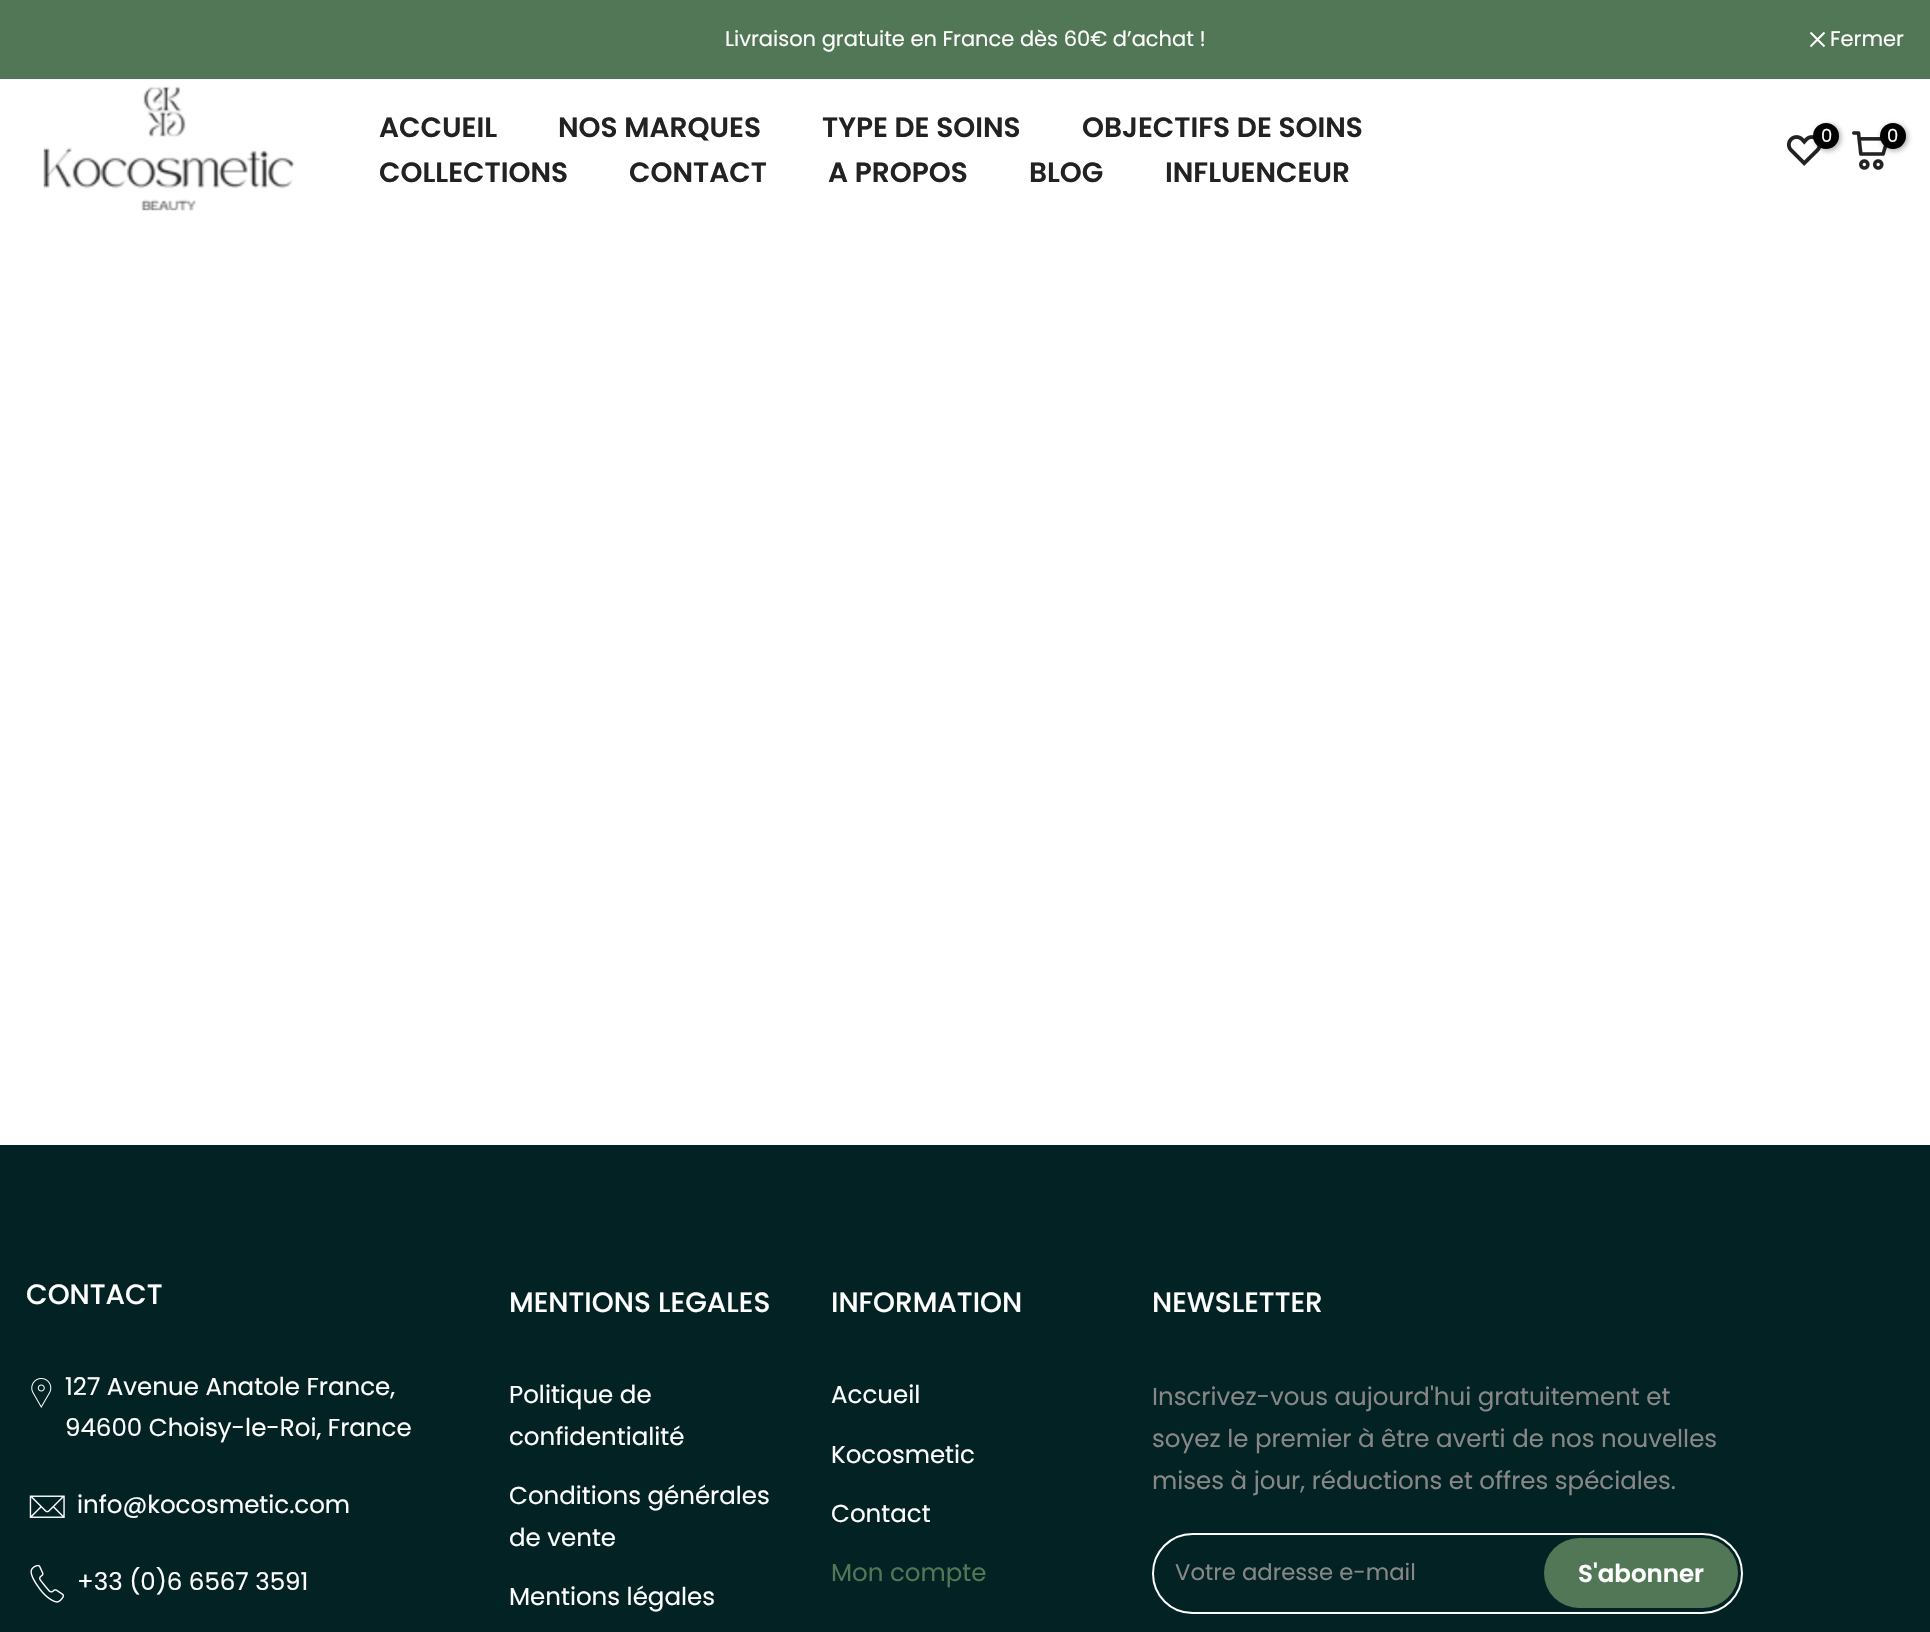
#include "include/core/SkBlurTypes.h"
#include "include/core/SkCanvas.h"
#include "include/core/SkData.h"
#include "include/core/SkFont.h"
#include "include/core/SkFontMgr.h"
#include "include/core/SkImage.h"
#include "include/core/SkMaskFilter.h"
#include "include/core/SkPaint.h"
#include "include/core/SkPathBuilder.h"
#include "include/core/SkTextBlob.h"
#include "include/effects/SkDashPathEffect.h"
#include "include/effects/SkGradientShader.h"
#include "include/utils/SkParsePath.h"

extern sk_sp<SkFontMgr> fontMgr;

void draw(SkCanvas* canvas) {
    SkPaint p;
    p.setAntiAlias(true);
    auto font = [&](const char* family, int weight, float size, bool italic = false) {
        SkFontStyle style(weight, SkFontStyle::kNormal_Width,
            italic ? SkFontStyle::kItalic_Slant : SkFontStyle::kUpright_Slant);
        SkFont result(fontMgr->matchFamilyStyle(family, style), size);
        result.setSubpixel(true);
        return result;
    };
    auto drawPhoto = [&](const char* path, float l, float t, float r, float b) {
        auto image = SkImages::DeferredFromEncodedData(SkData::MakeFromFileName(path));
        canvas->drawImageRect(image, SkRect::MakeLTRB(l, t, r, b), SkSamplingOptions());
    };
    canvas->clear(0xFFFFFFFF);
    p.setColor(0xFF517756);
    canvas->drawRect(SkRect::MakeLTRB(0, 0, 1930, 79), p);
    auto font1 = font("Poppins", 400, 21);
    p.setColor(0xFFFFFFFF);
    canvas->drawString("Livraison gratuite en France dès 60€ d’achat !", 725, 46, font1, p);
    p.setStyle(SkPaint::kStroke_Style);
    p.setStrokeWidth(2);
    canvas->drawPath(SkPathBuilder().moveTo(1824.5f, 32.5f).lineTo(1810.5f, 46.5f).moveTo(1824.5f, 46.5f).lineTo(1810.5f, 32.5f).detach(), p);
    p.setStyle(SkPaint::kFill_Style);
    canvas->drawString("Fermer", 1830, 46, font1, p);
    drawPhoto("media/1.png", 43, 86, 295, 211);
    auto font2 = font("Poppins", 600, 28);
    p.setColor(0xFF222222);
    {
        const struct { const char* s; float x, y; } items[] = {
            {"ACCUEIL", 379, 137},
            {"NOS MARQUES", 558, 137},
            {"TYPE DE SOINS", 822, 137},
            {"OBJECTIFS DE SOINS", 1082, 137},
            {"COLLECTIONS", 379, 182},
            {"CONTACT", 629, 182},
            {"A PROPOS", 828, 182},
            {"BLOG", 1029, 182},
            {"INFLUENCEUR", 1165, 182},
        };
        for (auto [s, x, y] : items) {
            canvas->drawString(s, x, y, font2, p);
        }
    }
    drawPhoto("media/2.png", 1786, 135, 1821, 166);
    p.setColor(0x4D000000);
    p.setMaskFilter(SkMaskFilter::MakeBlur(kNormal_SkBlurStyle, 2.5f));
    canvas->drawRoundRect(SkRect::MakeLTRB(1815, 124, 1841, 151), 13, 13, p);
    p.setMaskFilter(nullptr);
    p.setColor(0xFF000000);
    canvas->drawCircle(1826, 136, 13, p);
    auto font3 = font("Poppins", 400, 18);
    p.setColor(0xFFFFFFFF);
    canvas->drawString("0", 1821, 142, font3, p);
    drawPhoto("media/3.png", 1852, 131, 1887, 170);
    p.setColor(0x4D000000);
    p.setMaskFilter(SkMaskFilter::MakeBlur(kNormal_SkBlurStyle, 2.5f));
    canvas->drawRoundRect(SkRect::MakeLTRB(1881, 124, 1908, 151), 13.5f, 13.5f, p);
    p.setMaskFilter(nullptr);
    p.setColor(0xFF000000);
    canvas->drawCircle(1893, 136, 13, p);
    p.setColor(0xFFFFFFFF);
    canvas->drawString("0", 1887, 142, font3, p);
    p.setColor(0xFF032223);
    canvas->drawRect(SkRect::MakeLTRB(0, 1145, 1930, 1632), p);
    auto font4 = font("Poppins", 500, 28);
    p.setColor(0xFFFFFFFF);
    canvas->drawString("CONTACT", 26, 1304, font4, p);
    drawPhoto("media/4.png", 31, 1378, 52, 1408);
    auto font5 = font("Poppins", 400, 24.5f);
    canvas->drawString("127 Avenue Anatole France,", 65, 1395, font5, p);
    canvas->drawString("94600 Choisy-le-Roi, France", 65, 1436, font5, p);
    drawPhoto("media/5.png", 29, 1495, 65, 1518);
    canvas->drawString("info@kocosmetic.com", 77, 1513, font5, p);
    drawPhoto("media/6.png", 30, 1564, 64, 1603);
    canvas->drawString("+33 (0)6 6567 3591", 77, 1590, font5, p);
    canvas->drawString("MENTIONS LEGALES", 509, 1312, font4, p);
    {
        const struct { const char* s; float x, y; } items[] = {
            {"Politique de", 509, 1403},
            {"confidentialité", 509, 1445},
            {"Conditions générales", 509, 1504},
            {"de vente", 509, 1546},
            {"Mentions légales", 509, 1605},
        };
        for (auto [s, x, y] : items) {
            canvas->drawString(s, x, y, font5, p);
        }
    }
    canvas->drawString("INFORMATION", 831, 1312, font4, p);
    {
        const struct { const char* s; float x, y; } items[] = {
            {"Accueil", 831, 1403},
            {"Kocosmetic", 831, 1463},
            {"Contact", 831, 1522},
        };
        for (auto [s, x, y] : items) {
            canvas->drawString(s, x, y, font5, p);
        }
    }
    p.setColor(0xFF517756);
    canvas->drawString("Mon compte", 831, 1581, font5, p);
    p.setColor(0xFFFFFFFF);
    canvas->drawString("NEWSLETTER", 1152, 1312, font4, p);
    p.setColor(0xFF878787);
    {
        const struct { const char* s; float x, y; } items[] = {
            {"Inscrivez-vous aujourd'hui gratuitement et", 1152, 1405},
            {"soyez le premier à être averti de nos nouvelles", 1152, 1447},
            {"mises à jour, réductions et offres spéciales.", 1152, 1489},
        };
        for (auto [s, x, y] : items) {
            canvas->drawString(s, x, y, font5, p);
        }
    }
    p.setStyle(SkPaint::kStroke_Style);
    p.setColor(0xFFFFFFFF);
    canvas->drawRoundRect(SkRect::MakeLTRB(1153, 1534, 1742, 1613), 39.5f, 39.5f, p);
    auto font6 = font("Poppins", 400, 22.75f);
    p.setStyle(SkPaint::kFill_Style);
    p.setColor(0xFF878787);
    canvas->drawString("Votre adresse e-mail", 1175, 1580, font6, p);
    p.setColor(0xFF517756);
    canvas->drawRoundRect(SkRect::MakeLTRB(1544, 1538, 1738, 1608), 35, 35, p);
    auto font7 = font("Poppins", 600, 24.5f);
    p.setColor(0xFFFFFFFF);
    canvas->drawString("S'abonner", 1578, 1582, font7, p);
}
